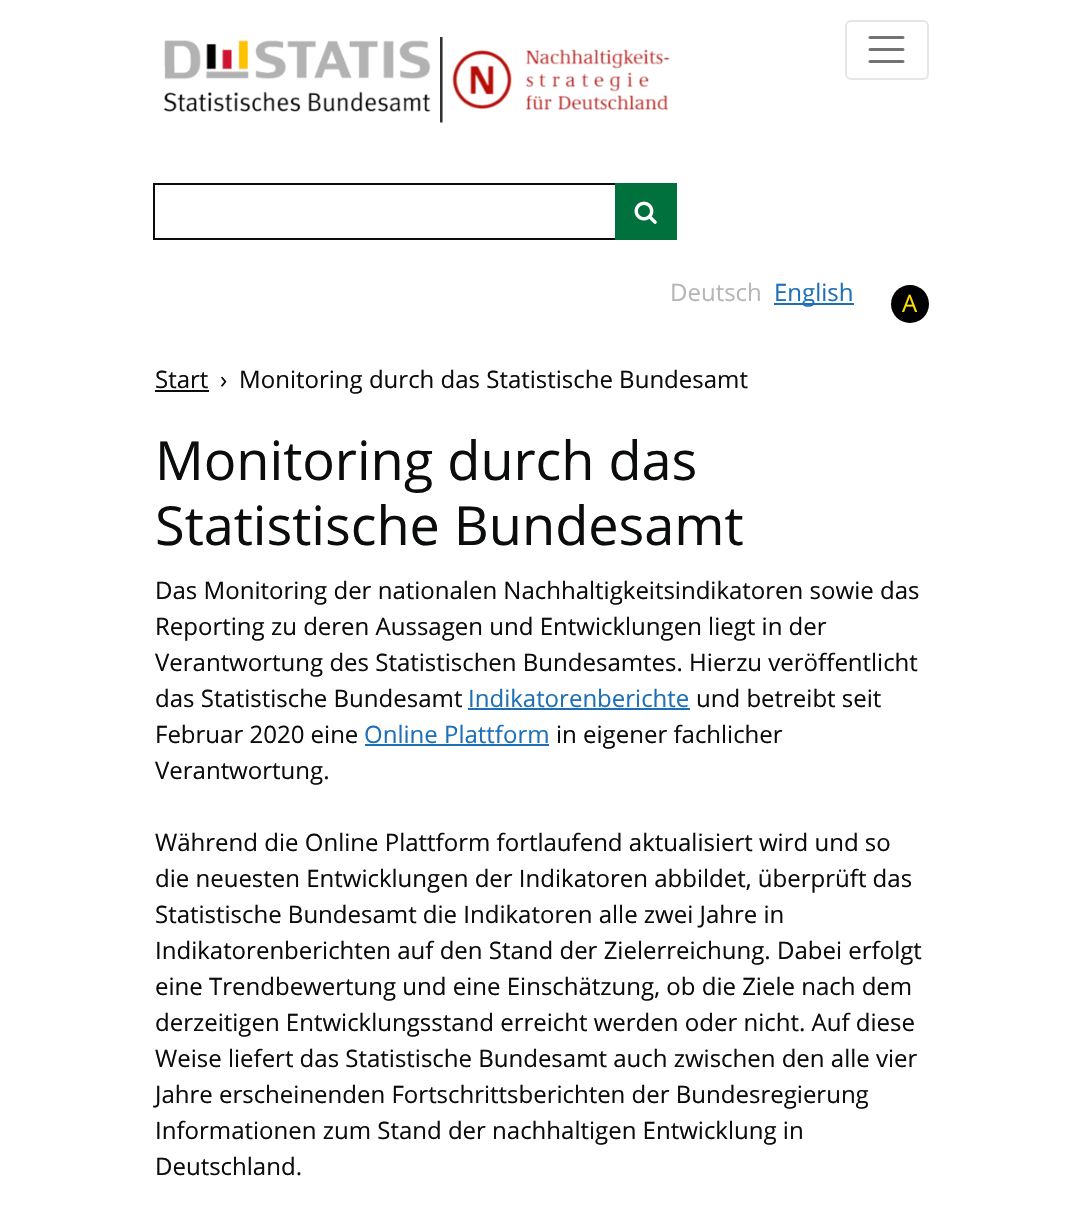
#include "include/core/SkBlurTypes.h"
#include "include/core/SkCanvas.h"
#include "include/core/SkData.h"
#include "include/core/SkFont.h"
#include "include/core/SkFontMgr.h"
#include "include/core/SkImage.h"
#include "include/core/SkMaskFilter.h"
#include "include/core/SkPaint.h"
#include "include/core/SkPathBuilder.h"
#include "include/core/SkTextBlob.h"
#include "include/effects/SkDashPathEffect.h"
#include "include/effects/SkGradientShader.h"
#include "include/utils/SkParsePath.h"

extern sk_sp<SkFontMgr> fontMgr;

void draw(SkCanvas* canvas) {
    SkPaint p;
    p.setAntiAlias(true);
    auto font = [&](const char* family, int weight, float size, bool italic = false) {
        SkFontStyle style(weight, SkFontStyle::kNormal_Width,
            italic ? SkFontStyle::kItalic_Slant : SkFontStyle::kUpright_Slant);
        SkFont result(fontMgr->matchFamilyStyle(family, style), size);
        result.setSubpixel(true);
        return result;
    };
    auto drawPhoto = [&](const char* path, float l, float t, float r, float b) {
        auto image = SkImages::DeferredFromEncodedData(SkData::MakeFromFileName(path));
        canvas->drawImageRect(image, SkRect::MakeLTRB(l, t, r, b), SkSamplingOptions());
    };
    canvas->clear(0xFFFFFFFF);
    drawPhoto("media/1.png", 163, 37, 670, 123);
    p.setStyle(SkPaint::kStroke_Style);
    p.setStrokeWidth(2);
    p.setColor(0xFFE6E6E6);
    canvas->drawRoundRect(SkRect::MakeLTRB(846, 21, 928, 79), 5, 5, p);
    p.setStrokeWidth(3);
    p.setStrokeCap(SkPaint::kRound_Cap);
    p.setColor(0xFF737373);
    canvas->drawPath(SkPathBuilder().moveTo(870, 37.5f).lineTo(903, 37.5f).moveTo(870, 49.5f).lineTo(903, 49.5f).moveTo(870, 61.5f).lineTo(903, 61.5f).detach(), p);
    p.setStrokeWidth(2);
    p.setStrokeCap(SkPaint::kButt_Cap);
    p.setColor(0xFF0B0C0C);
    canvas->drawRect(SkRect::MakeLTRB(154, 184, 616, 239), p);
    p.setStyle(SkPaint::kFill_Style);
    p.setColor(0xFF00703C);
    canvas->drawRect(SkRect::MakeLTRB(615, 183, 677, 240), p);
    drawPhoto("media/2.png", 634, 201, 657, 224);
    auto font1 = font("Open Sans", 400, 24);
    p.setColor(0xFFB6B6B6);
    canvas->drawString("Deutsch", 670, 301, font1, p);
    p.setColor(0xFF1D70B8);
    canvas->drawRect(SkRect::MakeLTRB(774, 303, 854, 305), p);
    canvas->drawString("English", 774, 301, font1, p);
    p.setColor(0xFF000000);
    canvas->drawCircle(910, 304, 19, p);
    p.setColor(0xFFFFDD00);
    canvas->drawString("A", 902, 312, font1, p);
    p.setColor(0xFF0B0C0C);
    canvas->drawString("Start", 155, 388, font1, p);
    canvas->drawRect(SkRect::MakeLTRB(155, 390, 209, 392), p);
    canvas->drawString("›", 220, 388, font1, p);
    canvas->drawString("Monitoring durch das Statistische Bundesamt", 239, 388, font1, p);
    auto font2 = font("Open Sans", 400, 54);
    canvas->drawString("Monitoring durch das", 155, 480, font2, p);
    canvas->drawString("Statistische Bundesamt", 155, 545, font2, p);
    {
        const struct { const char* s; float x, y; } items[] = {
            {"Das Monitoring der nationalen Nachhaltigkeitsindikatoren sowie das", 155, 599},
            {"Reporting zu deren Aussagen und Entwicklungen liegt in der", 155, 635},
            {"Verantwortung des Statistischen Bundesamtes. Hierzu veröffentlicht", 155, 671},
            {"das Statistische Bundesamt", 155, 707},
        };
        for (auto [s, x, y] : items) {
            canvas->drawString(s, x, y, font1, p);
        }
    }
    p.setColor(0xFF1D70B8);
    canvas->drawString("Indikatorenberichte", 468, 707, font1, p);
    canvas->drawRect(SkRect::MakeLTRB(468, 708, 690, 710), p);
    p.setColor(0xFF0B0C0C);
    canvas->drawString("und betreibt seit", 696, 707, font1, p);
    canvas->drawString("Februar 2020 eine", 155, 743, font1, p);
    p.setColor(0xFF1D70B8);
    canvas->drawString("Online Plattform", 364, 743, font1, p);
    canvas->drawRect(SkRect::MakeLTRB(365, 744, 549, 746), p);
    p.setColor(0xFF0B0C0C);
    {
        const struct { const char* s; float x, y; } items[] = {
            {"in eigener fachlicher", 556, 743},
            {"Verantwortung.", 155, 779},
            {"Während die Online Plattform fortlaufend aktualisiert wird und so", 155, 851},
            {"die neuesten Entwicklungen der Indikatoren abbildet, überprüft das", 155, 887},
            {"Statistische Bundesamt die Indikatoren alle zwei Jahre in", 155, 923},
            {"Indikatorenberichten auf den Stand der Zielerreichung. Dabei erfolgt", 155, 959},
            {"eine Trendbewertung und eine Einschätzung, ob die Ziele nach dem", 155, 995},
            {"derzeitigen Entwicklungsstand erreicht werden oder nicht. Auf diese", 155, 1031},
            {"Weise liefert das Statistische Bundesamt auch zwischen den alle vier", 155, 1067},
            {"Jahre erscheinenden Fortschrittsberichten der Bundesregierung", 155, 1103},
            {"Informationen zum Stand der nachhaltigen Entwicklung in", 155, 1139},
            {"Deutschland.", 155, 1175},
        };
        for (auto [s, x, y] : items) {
            canvas->drawString(s, x, y, font1, p);
        }
    }
}
